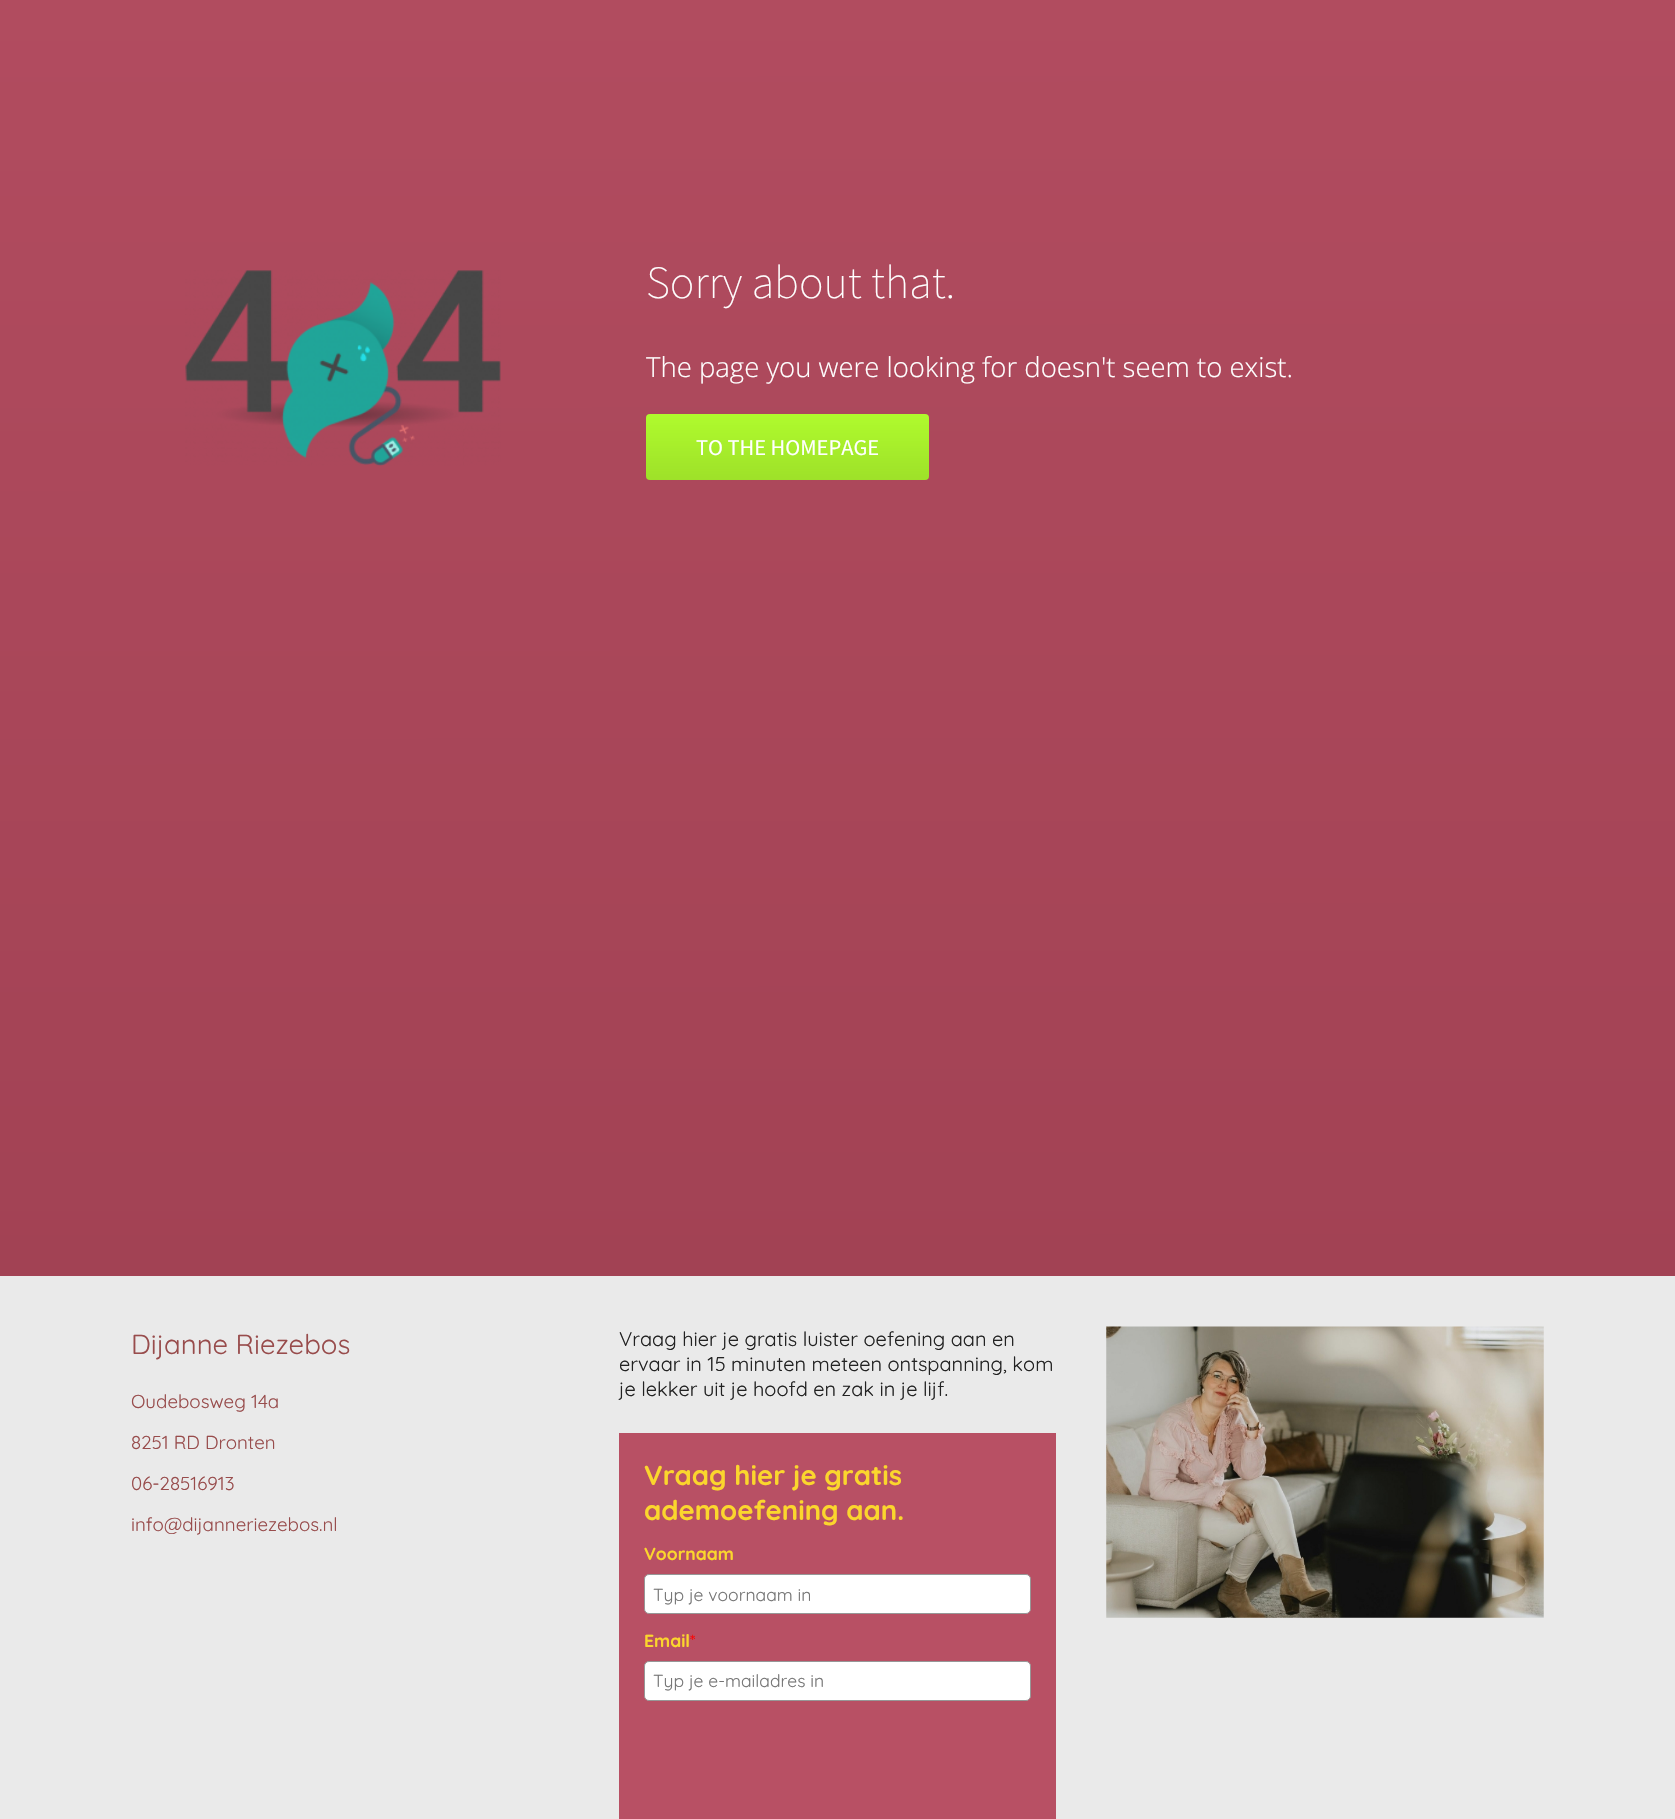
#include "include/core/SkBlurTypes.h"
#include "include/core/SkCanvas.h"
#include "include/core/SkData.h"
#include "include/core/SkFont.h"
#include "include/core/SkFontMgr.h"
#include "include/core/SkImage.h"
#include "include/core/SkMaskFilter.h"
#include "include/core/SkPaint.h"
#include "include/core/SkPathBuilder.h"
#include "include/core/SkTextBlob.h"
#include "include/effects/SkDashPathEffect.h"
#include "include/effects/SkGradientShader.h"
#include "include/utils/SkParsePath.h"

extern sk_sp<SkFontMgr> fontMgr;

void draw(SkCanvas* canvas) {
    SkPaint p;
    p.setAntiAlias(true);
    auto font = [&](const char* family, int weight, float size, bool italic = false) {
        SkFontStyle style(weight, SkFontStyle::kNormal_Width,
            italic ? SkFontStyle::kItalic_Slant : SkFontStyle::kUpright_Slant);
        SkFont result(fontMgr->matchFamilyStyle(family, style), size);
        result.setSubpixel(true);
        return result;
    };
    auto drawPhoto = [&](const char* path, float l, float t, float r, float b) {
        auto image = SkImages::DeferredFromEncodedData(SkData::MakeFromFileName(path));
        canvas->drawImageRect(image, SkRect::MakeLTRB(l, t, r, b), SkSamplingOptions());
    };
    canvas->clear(0xFFEAEAEA);
    {
        const SkColor colors[] = {0xFFB85064, 0xFFA24254};
        const float stops[] = {0, 1};
        const SkPoint ends[] = {{837, -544}, {838, 1276}};
        p.setShader(SkGradientShader::MakeLinear(ends, colors, stops, 2, SkTileMode::kClamp));
        p.setAlpha(255);
    }
    canvas->drawRect(SkRect::MakeLTRB(0, 0, 1675, 1276), p);
    drawPhoto("media/1.png", 185, 270, 501, 466);
    auto font1 = font("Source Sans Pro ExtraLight", 200, 46.25f);
    p.setShader(nullptr);
    p.setColor(0xFFFFFFFF);
    canvas->drawString("Sorry about that.", 646, 298, font1, p);
    auto font2 = font("Open Sans", 300, 27.5f);
    canvas->drawString("The page you were looking for doesn't seem to exist.", 646, 377, font2, p);
    p.setColor(0xFFB0FB2D);
    canvas->drawRoundRect(SkRect::MakeLTRB(646, 414, 929, 480), 4, 4, p);
    {
        const SkColor colors[] = {0x00000000, 0x1A000000};
        const float stops[] = {0, 1};
        const SkPoint ends[] = {{788, 414}, {788, 480}};
        p.setShader(SkGradientShader::MakeLinear(ends, colors, stops, 2, SkTileMode::kClamp));
        p.setAlpha(255);
    }
    canvas->drawRoundRect(SkRect::MakeLTRB(646, 414, 929, 480), 4, 4, p);
    auto font3 = font("Source Sans Pro", 400, 22.5f);
    p.setShader(nullptr);
    p.setColor(0xFFFFFFFF);
    canvas->drawString("TO THE HOMEPAGE", 696, 455, font3, p);
    auto font4 = font("Quicksand", 300, 27.5f);
    p.setColor(0xFF984C4C);
    canvas->drawString("Dijanne Riezebos", 131, 1354, font4, p);
    auto font5 = font("Quicksand", 300, 18.75f);
    {
        const struct { const char* s; float x, y; } items[] = {
            {"Oudebosweg 14a", 131, 1408},
            {"8251 RD Dronten", 131, 1449},
            {"06-28516913", 131, 1490},
            {"info@dijanneriezebos.nl", 131, 1531},
        };
        for (auto [s, x, y] : items) {
            canvas->drawString(s, x, y, font5, p);
        }
    }
    auto font6 = font("Quicksand", 300, 20);
    p.setColor(0xFF222222);
    {
        const struct { const char* s; float x, y; } items[] = {
            {"Vraag hier je gratis luister oefening aan en", 619, 1346},
            {"ervaar in 15 minuten meteen ontspanning, kom", 619, 1371},
            {"je lekker uit je hoofd en zak in je lijf.", 619, 1396},
        };
        for (auto [s, x, y] : items) {
            canvas->drawString(s, x, y, font6, p);
        }
    }
    p.setColor(0xFFB85064);
    canvas->drawRect(SkRect::MakeLTRB(619, 1433, 1056, 1819), p);
    auto font7 = font("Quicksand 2", 300, 27.5f);
    p.setColor(0xFFFBD62D);
    canvas->drawString("Vraag hier je gratis", 644, 1485, font7, p);
    canvas->drawString("ademoefening aan.", 644, 1520, font7, p);
    auto font8 = font("Quicksand 2", 300, 17.5f);
    canvas->drawString("Voornaam", 644, 1560, font8, p);
    p.setColor(0xFFFFFFFF);
    canvas->drawRoundRect(SkRect::MakeLTRB(644.5f, 1574.5f, 1030.5f, 1613.5f), 4.5f, 4.5f, p);
    p.setStyle(SkPaint::kStroke_Style);
    p.setStrokeWidth(1);
    p.setColor(0xFF979797);
    canvas->drawRoundRect(SkRect::MakeLTRB(644.5f, 1574.5f, 1030.5f, 1613.5f), 4.5f, 4.5f, p);
    auto font9 = font("Quicksand", 300, 17.5f);
    p.setStyle(SkPaint::kFill_Style);
    p.setColor(0xFF757575);
    canvas->drawString("Typ je voornaam in", 653, 1601, font9, p);
    p.setColor(0xFFFBD62D);
    canvas->drawString("Email", 644, 1647, font8, p);
    p.setColor(0xFFFF0000);
    canvas->drawString("*", 690, 1647, font9, p);
    p.setColor(0xFFFFFFFF);
    canvas->drawRoundRect(SkRect::MakeLTRB(644.5f, 1661.5f, 1030.5f, 1700.5f), 4.5f, 4.5f, p);
    p.setStyle(SkPaint::kStroke_Style);
    p.setColor(0xFF979797);
    canvas->drawRoundRect(SkRect::MakeLTRB(644.5f, 1661.5f, 1030.5f, 1700.5f), 4.5f, 4.5f, p);
    p.setStyle(SkPaint::kFill_Style);
    p.setColor(0xFF757575);
    canvas->drawString("Typ je e-mailadres in", 653, 1687, font9, p);
    drawPhoto("media/2.png", 1106, 1326, 1544, 1618);
}
